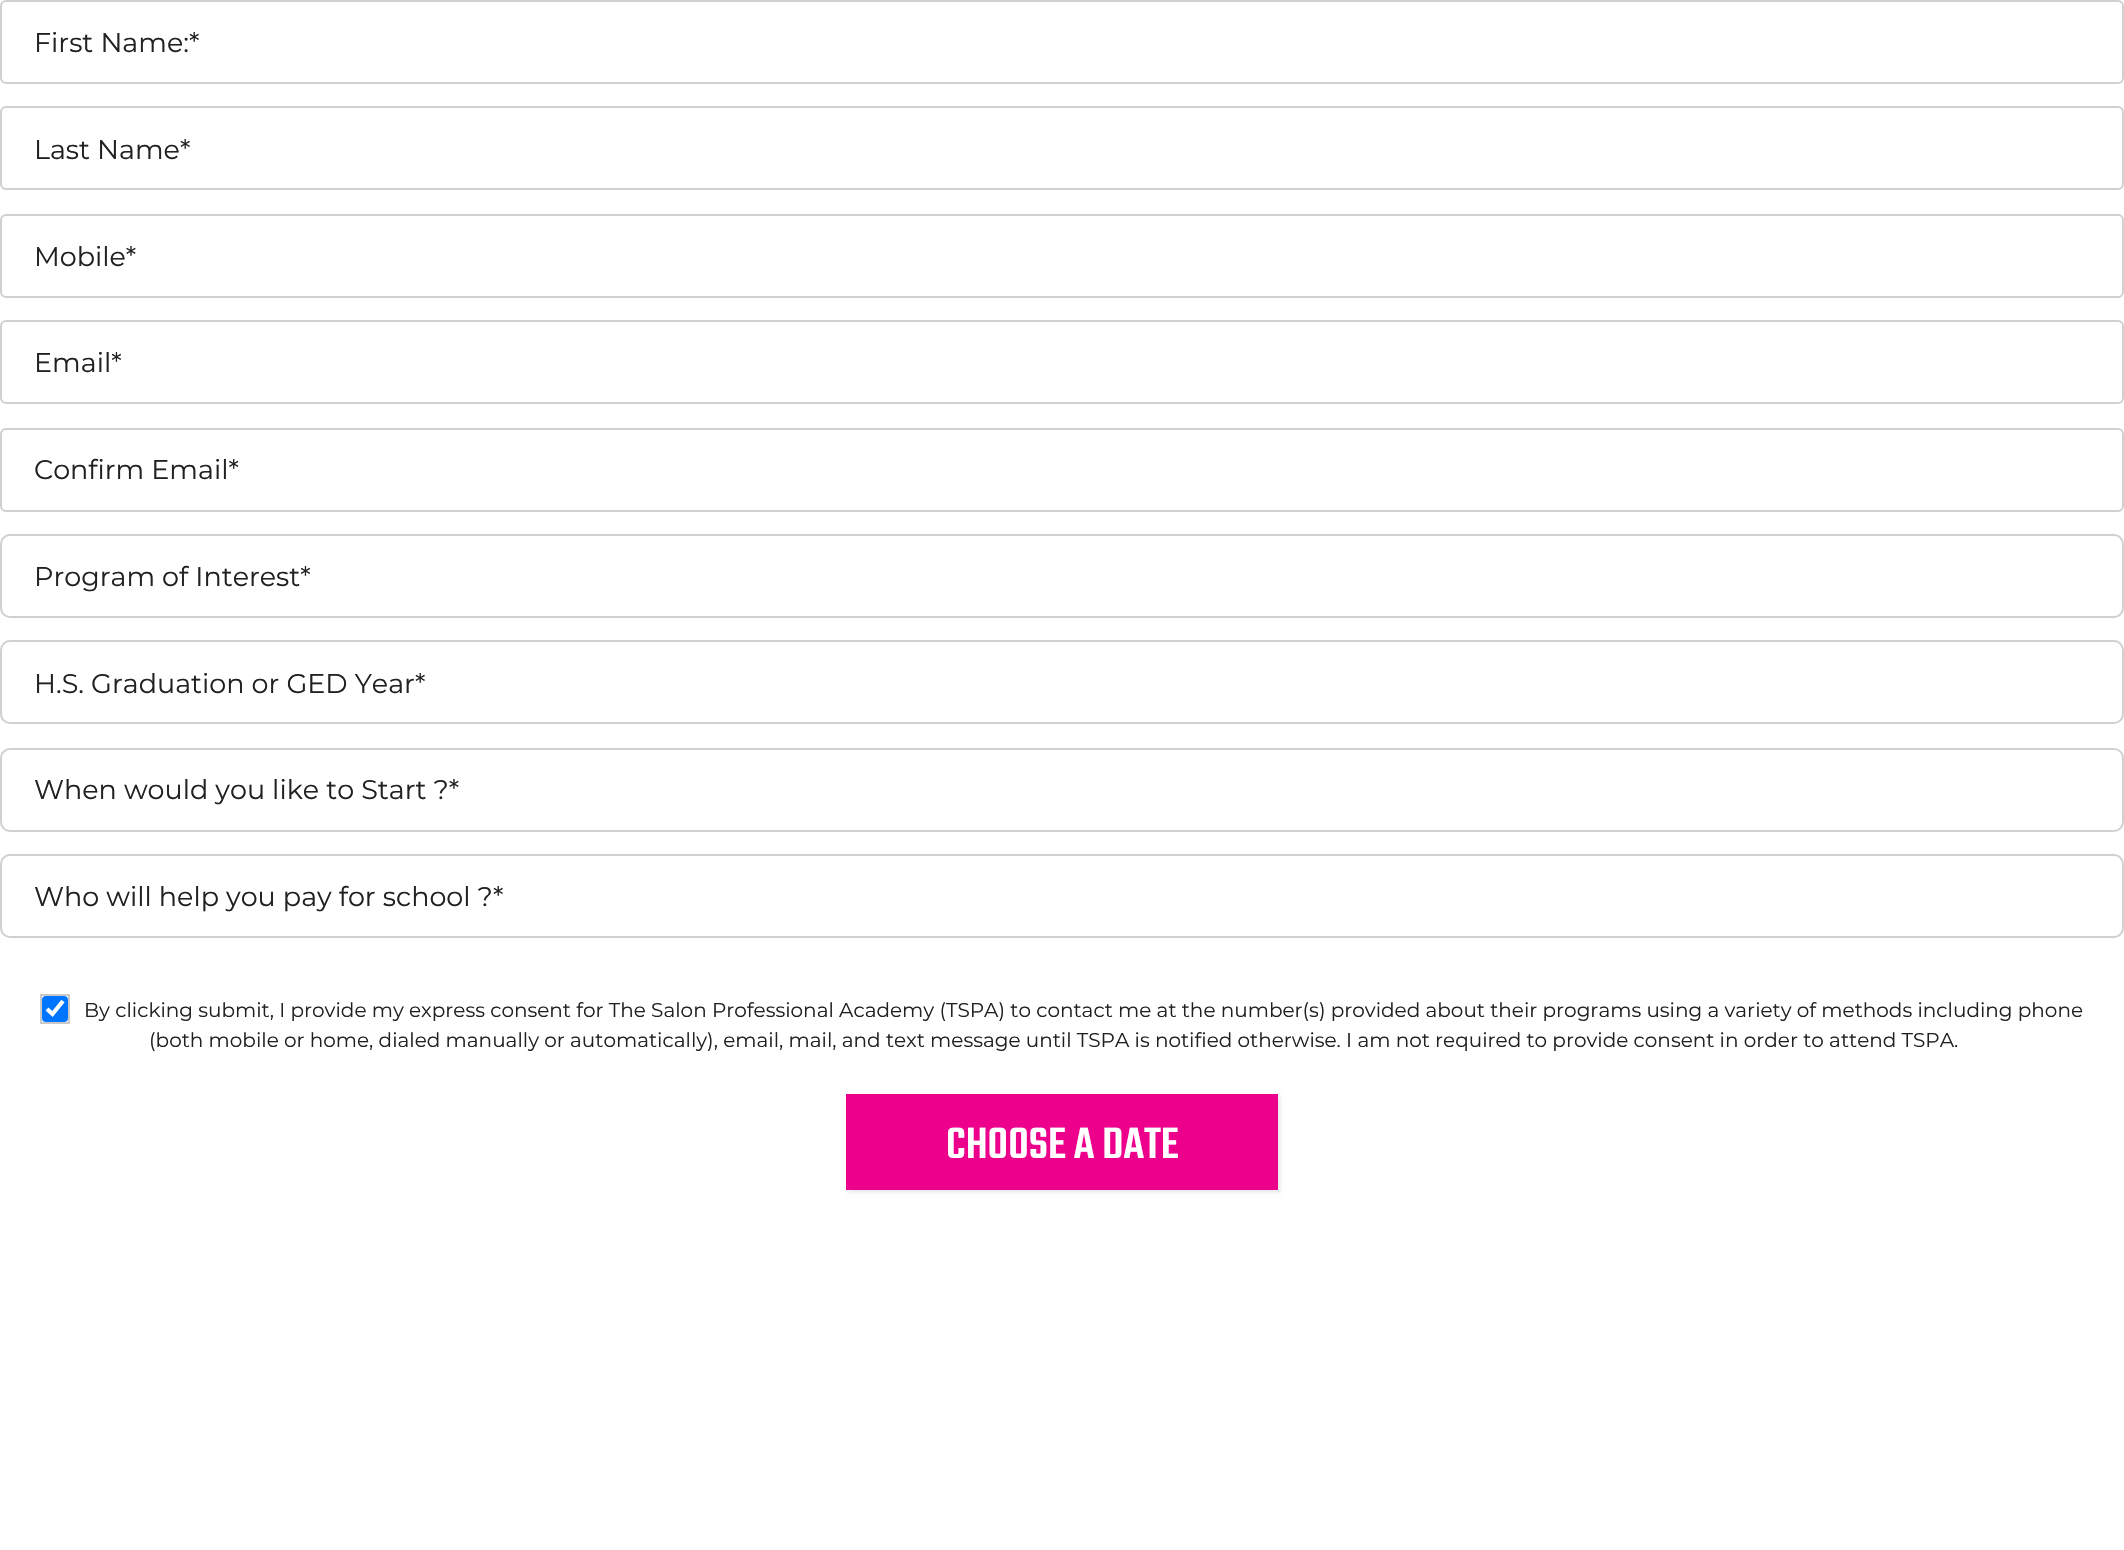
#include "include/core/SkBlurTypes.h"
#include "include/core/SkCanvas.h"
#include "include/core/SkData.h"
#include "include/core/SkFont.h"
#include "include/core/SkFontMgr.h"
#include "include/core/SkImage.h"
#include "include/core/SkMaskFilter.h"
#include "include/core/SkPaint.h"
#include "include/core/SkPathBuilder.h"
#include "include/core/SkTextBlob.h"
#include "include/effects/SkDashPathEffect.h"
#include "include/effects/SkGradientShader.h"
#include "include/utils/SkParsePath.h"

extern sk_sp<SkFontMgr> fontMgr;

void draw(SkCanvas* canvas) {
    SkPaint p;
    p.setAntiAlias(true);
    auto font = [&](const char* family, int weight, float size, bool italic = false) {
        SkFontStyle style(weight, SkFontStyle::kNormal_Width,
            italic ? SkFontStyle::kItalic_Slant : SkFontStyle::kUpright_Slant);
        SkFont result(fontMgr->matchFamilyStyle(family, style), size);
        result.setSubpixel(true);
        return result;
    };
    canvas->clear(0xFFFFFFFF);
    p.setStyle(SkPaint::kStroke_Style);
    p.setStrokeWidth(2);
    p.setColor(0xFFD0D0D0);
    canvas->drawRoundRect(SkRect::MakeLTRB(1, 1, 2123, 83), 5, 5, p);
    auto font1 = font("Montserrat", 400, 27);
    p.setStyle(SkPaint::kFill_Style);
    p.setColor(0xFF212121);
    canvas->drawString("First Name:*", 34, 52, font1, p);
    p.setStyle(SkPaint::kStroke_Style);
    p.setColor(0xFFD0D0D0);
    canvas->drawRoundRect(SkRect::MakeLTRB(1, 107, 2123, 189), 5, 5, p);
    p.setStyle(SkPaint::kFill_Style);
    p.setColor(0xFF212121);
    canvas->drawString("Last Name*", 34, 159, font1, p);
    p.setStyle(SkPaint::kStroke_Style);
    p.setColor(0xFFD0D0D0);
    canvas->drawRoundRect(SkRect::MakeLTRB(1, 215, 2123, 297), 5, 5, p);
    p.setStyle(SkPaint::kFill_Style);
    p.setColor(0xFF212121);
    canvas->drawString("Mobile*", 34, 266, font1, p);
    p.setStyle(SkPaint::kStroke_Style);
    p.setColor(0xFFD0D0D0);
    canvas->drawRoundRect(SkRect::MakeLTRB(1, 321, 2123, 403), 5, 5, p);
    p.setStyle(SkPaint::kFill_Style);
    p.setColor(0xFF212121);
    canvas->drawString("Email*", 34, 372, font1, p);
    p.setStyle(SkPaint::kStroke_Style);
    p.setColor(0xFFD0D0D0);
    canvas->drawRoundRect(SkRect::MakeLTRB(1, 429, 2123, 511), 5, 5, p);
    p.setStyle(SkPaint::kFill_Style);
    p.setColor(0xFF212121);
    canvas->drawString("Confirm Email*", 34, 479, font1, p);
    p.setStyle(SkPaint::kStroke_Style);
    p.setColor(0xFFD0D0D0);
    canvas->drawRoundRect(SkRect::MakeLTRB(1, 535, 2123, 617), 9, 9, p);
    p.setStyle(SkPaint::kFill_Style);
    p.setColor(0xFF212121);
    canvas->drawString("Program of Interest*", 34, 586, font1, p);
    p.setStyle(SkPaint::kStroke_Style);
    p.setColor(0xFFD0D0D0);
    canvas->drawRoundRect(SkRect::MakeLTRB(1, 641, 2123, 723), 9, 9, p);
    p.setStyle(SkPaint::kFill_Style);
    p.setColor(0xFF212121);
    canvas->drawString("H.S. Graduation or GED Year*", 34, 693, font1, p);
    p.setStyle(SkPaint::kStroke_Style);
    p.setColor(0xFFD0D0D0);
    canvas->drawRoundRect(SkRect::MakeLTRB(1, 749, 2123, 831), 9, 9, p);
    p.setStyle(SkPaint::kFill_Style);
    p.setColor(0xFF212121);
    canvas->drawString("When would you like to Start ?*", 34, 799, font1, p);
    p.setStyle(SkPaint::kStroke_Style);
    p.setColor(0xFFD0D0D0);
    canvas->drawRoundRect(SkRect::MakeLTRB(1, 855, 2123, 937), 9, 9, p);
    p.setStyle(SkPaint::kFill_Style);
    p.setColor(0xFF212121);
    canvas->drawString("Who will help you pay for school ?*", 34, 906, font1, p);
    p.setColor(0xFF0075FF);
    canvas->drawRoundRect(SkRect::MakeLTRB(42, 996, 68, 1022), 4, 4, p);
    p.setStyle(SkPaint::kStroke_Style);
    p.setStrokeWidth(4.2f);
    p.setColor(0xFFFFFFFF);
    canvas->drawPath(SkPathBuilder().moveTo(47, 1009).lineTo(52.5f, 1014).lineTo(63, 1001).detach(), p);
    p.setStrokeWidth(2);
    p.setColor(0xFFC9C9C9);
    canvas->drawRect(SkRect::MakeLTRB(41, 995, 69, 1023), p);
    auto font2 = font("Montserrat", 400, 20);
    p.setStyle(SkPaint::kFill_Style);
    p.setColor(0xFF212121);
    canvas->drawString("By clicking submit, I provide my express consent for The Salon Professional Academy (TSPA) to contact me at the number(s) provided about their programs using a variety of methods including phone", 84, 1017, font2, p);
    canvas->drawString("(both mobile or home, dialed manually or automatically), email, mail, and text message until TSPA is notified otherwise. I am not required to provide consent in order to attend TSPA.", 149, 1047, font2, p);
    p.setColor(0x1A000000);
    p.setMaskFilter(SkMaskFilter::MakeBlur(kNormal_SkBlurStyle, 2));
    canvas->drawRect(SkRect::MakeLTRB(848, 1096, 1280, 1192), p);
    p.setMaskFilter(nullptr);
    p.setColor(0xFFEC008C);
    canvas->drawRect(SkRect::MakeLTRB(846, 1094, 1278, 1190), p);
    auto font3 = font("Teko", 300, 48);
    p.setColor(0xFFFFFFFF);
    canvas->drawString("CHOOSE A DATE", 946, 1158, font3, p);
}
